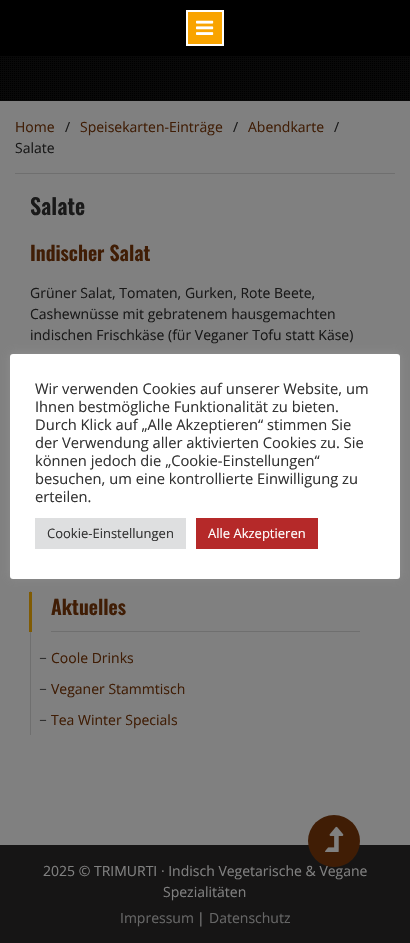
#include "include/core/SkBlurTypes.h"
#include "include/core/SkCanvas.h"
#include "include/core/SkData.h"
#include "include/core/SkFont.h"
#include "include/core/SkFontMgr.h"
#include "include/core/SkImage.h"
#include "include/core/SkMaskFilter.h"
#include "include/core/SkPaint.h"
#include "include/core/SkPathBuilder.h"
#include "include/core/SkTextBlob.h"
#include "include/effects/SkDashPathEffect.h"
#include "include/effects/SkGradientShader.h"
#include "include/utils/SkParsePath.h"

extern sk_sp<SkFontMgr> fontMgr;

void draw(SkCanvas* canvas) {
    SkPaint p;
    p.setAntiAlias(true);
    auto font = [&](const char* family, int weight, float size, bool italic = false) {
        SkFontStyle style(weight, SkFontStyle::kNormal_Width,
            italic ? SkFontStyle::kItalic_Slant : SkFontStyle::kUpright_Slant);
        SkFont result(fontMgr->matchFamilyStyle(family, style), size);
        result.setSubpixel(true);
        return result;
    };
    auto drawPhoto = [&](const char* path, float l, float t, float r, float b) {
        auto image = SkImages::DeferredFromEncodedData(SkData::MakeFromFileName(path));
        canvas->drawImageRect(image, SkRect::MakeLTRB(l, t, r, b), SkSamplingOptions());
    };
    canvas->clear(0xFF808080);
    p.setColor(0xFF000000);
    canvas->drawRect(SkRect::MakeLTRB(0, 0, 410, 56), p);
    p.setColor(0xFFF9A400);
    canvas->drawRect(SkRect::MakeLTRB(187, 11, 223, 45), p);
    p.setStyle(SkPaint::kStroke_Style);
    p.setStrokeWidth(2);
    p.setColor(0xFFFFFFFE);
    canvas->drawRect(SkRect::MakeLTRB(187, 11, 223, 45), p);
    drawPhoto("media/1.png", 196, 20, 214, 35);
    p.setStyle(SkPaint::kFill_Style);
    p.setColor(0xFF0C0C0C);
    canvas->drawRect(SkRect::MakeLTRB(0, 56, 410, 101), p);
    drawPhoto("media/2.png", 0, 56, 410, 101);
    p.setColor(0xFF6F6F6F);
    canvas->drawRect(SkRect::MakeLTRB(15, 173, 395, 174), p);
    auto font1 = font("Open Sans", 400, 14);
    p.setColor(0xFF401D05);
    canvas->drawString("Home", 15, 132, font1, p);
    p.setColor(0xFF191919);
    canvas->drawString("/", 65, 132, font1, p);
    p.setColor(0xFF401D05);
    canvas->drawString("Speisekarten-Einträge", 80, 132, font1, p);
    p.setColor(0xFF191919);
    canvas->drawString("/", 233, 132, font1, p);
    p.setColor(0xFF401D05);
    canvas->drawString("Abendkarte", 248, 132, font1, p);
    p.setColor(0xFF191919);
    canvas->drawString("/", 334, 132, font1, p);
    canvas->drawString("Salate", 15, 153, font1, p);
    auto font2 = font("Oswald", 600, 22);
    canvas->drawString("Salate", 30, 215, font2, p);
    auto font3 = font("Oswald", 600, 20);
    p.setColor(0xFF401D05);
    canvas->drawString("Indischer Salat", 30, 261, font3, p);
    p.setColor(0xFF191919);
    {
        const struct { const char* s; float x, y; } items[] = {
            {"Grüner Salat, Tomaten, Gurken, Rote Beete,", 30, 298},
            {"Cashewnüsse mit gebratenem hausgemachten", 30, 319},
            {"indischen Frischkäse (für Veganer Tofu statt Käse)", 30, 340},
        };
        for (auto [s, x, y] : items) {
            canvas->drawString(s, x, y, font1, p);
        }
    }
    {
        const struct { float l, t, r, b; SkColor color; } items[] = {
            {30, 591, 31, 735, 0xFF6F6F6F},
            {51, 631, 360, 632, 0xFF6F6F6F},
            {29, 592, 32, 632, 0xFF805B03},
        };
        for (auto [l, t, r, b, color] : items) {
            p.setColor(color);
            canvas->drawRect(SkRect::MakeLTRB(l, t, r, b), p);
        }
    }
    p.setColor(0xFF401D05);
    canvas->drawString("Aktuelles", 51, 615, font3, p);
    auto font4 = font("Liberation Serif", 400, 12);
    p.setColor(0xFF000000);
    canvas->drawString("_", 40, 657, font4, p);
    p.setColor(0xFF401D05);
    canvas->drawString("Coole Drinks", 51, 663, font1, p);
    p.setColor(0xFF000000);
    canvas->drawString("_", 40, 688, font4, p);
    p.setColor(0xFF401D05);
    canvas->drawString("Veganer Stammtisch", 51, 694, font1, p);
    p.setColor(0xFF000000);
    canvas->drawString("_", 40, 719, font4, p);
    p.setColor(0xFF401D05);
    canvas->drawString("Tea Winter Specials", 51, 725, font1, p);
    p.setColor(0xFF161515);
    canvas->drawRect(SkRect::MakeLTRB(0, 845, 410, 943), p);
    p.setColor(0xFF808080);
    canvas->drawString("2025 © TRIMURTI · Indisch Vegetarische & Vegane", 43, 876, font1, p);
    canvas->drawString("Spezialitäten", 163, 897, font1, p);
    p.setColor(0xFF666666);
    canvas->drawString("Impressum", 120, 923, font1, p);
    p.setColor(0xFF808080);
    canvas->drawString("|", 197, 923, font1, p);
    p.setColor(0xFF666666);
    canvas->drawString("Datenschutz", 209, 923, font1, p);
    p.setColor(0x4DACABAB);
    p.setMaskFilter(SkMaskFilter::MakeBlur(kNormal_SkBlurStyle, 5));
    canvas->drawRoundRect(SkRect::MakeLTRB(10, 353, 400, 578), 3, 3, p);
    p.setMaskFilter(nullptr);
    p.setColor(0xFFFFFFFF);
    canvas->drawRoundRect(SkRect::MakeLTRB(10, 354, 400, 579), 3, 3, p);
    auto font5 = font("Open Sans", 400, 14.7f);
    p.setColor(0xFF333333);
    {
        const struct { const char* s; float x, y; } items[] = {
            {"Wir verwenden Cookies auf unserer Website, um", 35, 394},
            {"Ihnen bestmögliche Funktionalität zu bieten.", 35, 412},
            {"Durch Klick auf „Alle Akzeptieren“ stimmen Sie", 35, 430},
            {"der Verwendung aller aktivierten Cookies zu. Sie", 35, 448},
            {"können jedoch die „Cookie-Einstellungen“", 35, 466},
            {"besuchen, um eine kontrollierte Einwilligung zu", 35, 484},
            {"erteilen.", 35, 502},
        };
        for (auto [s, x, y] : items) {
            canvas->drawString(s, x, y, font5, p);
        }
    }
    p.setColor(0xFFDEDFE0);
    canvas->drawRect(SkRect::MakeLTRB(35, 518, 186, 549), p);
    auto font6 = font("Open Sans", 400, 13);
    p.setColor(0xFF333333);
    canvas->drawString("Cookie-Einstellungen", 47, 538, font6, p);
    p.setColor(0xFFB52929);
    canvas->drawRect(SkRect::MakeLTRB(196, 518, 318, 549), p);
    p.setColor(0xFFFFFFFF);
    canvas->drawString("Alle Akzeptieren", 208, 538, font6, p);
    p.setColor(0xFF401D05);
    canvas->drawCircle(334, 841, 26, p);
    drawPhoto("media/3.png", 325, 826, 344, 852);
}
